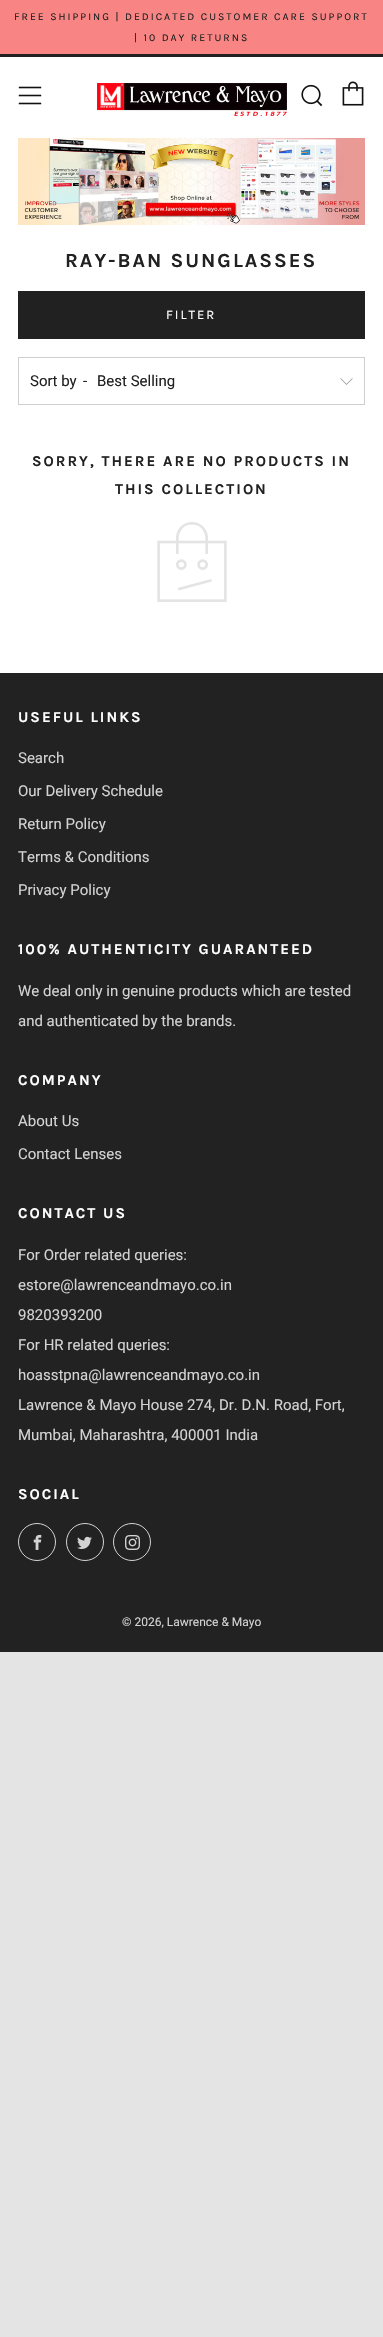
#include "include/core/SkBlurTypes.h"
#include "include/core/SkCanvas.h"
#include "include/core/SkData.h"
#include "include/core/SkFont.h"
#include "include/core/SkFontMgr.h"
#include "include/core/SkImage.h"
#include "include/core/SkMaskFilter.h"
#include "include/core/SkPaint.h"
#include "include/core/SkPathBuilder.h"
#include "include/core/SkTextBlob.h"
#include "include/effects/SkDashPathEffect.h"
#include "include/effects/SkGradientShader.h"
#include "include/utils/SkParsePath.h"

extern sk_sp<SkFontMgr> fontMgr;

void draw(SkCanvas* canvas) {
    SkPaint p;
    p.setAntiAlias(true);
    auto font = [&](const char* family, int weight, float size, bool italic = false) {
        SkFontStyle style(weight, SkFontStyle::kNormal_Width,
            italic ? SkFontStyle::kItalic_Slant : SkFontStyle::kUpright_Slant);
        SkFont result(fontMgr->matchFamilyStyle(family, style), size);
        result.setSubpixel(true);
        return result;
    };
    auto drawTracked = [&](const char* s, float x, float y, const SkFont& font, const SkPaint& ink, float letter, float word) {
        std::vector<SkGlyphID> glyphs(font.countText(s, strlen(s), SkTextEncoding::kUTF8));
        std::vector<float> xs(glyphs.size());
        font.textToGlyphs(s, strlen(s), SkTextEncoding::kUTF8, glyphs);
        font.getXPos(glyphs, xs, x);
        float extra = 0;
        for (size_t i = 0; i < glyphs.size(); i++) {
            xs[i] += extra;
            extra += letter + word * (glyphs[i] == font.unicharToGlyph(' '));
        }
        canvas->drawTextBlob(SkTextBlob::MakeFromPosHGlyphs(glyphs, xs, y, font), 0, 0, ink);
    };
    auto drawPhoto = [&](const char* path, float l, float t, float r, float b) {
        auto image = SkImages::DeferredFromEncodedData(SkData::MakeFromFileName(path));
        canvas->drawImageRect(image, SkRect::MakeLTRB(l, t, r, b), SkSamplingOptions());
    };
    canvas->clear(0xFFE4E4E4);
    p.setColor(0xFFFFFFFF);
    canvas->drawRect(SkRect::MakeLTRB(0, 57, 383, 673), p);
    p.setColor(0xFFF88484);
    canvas->drawRect(SkRect::MakeLTRB(0, 0, 383, 54), p);
    auto font1 = font("Karla", 400, 10.5f);
    p.setColor(0xFF212121);
    drawTracked("FREE SHIPPING | DEDICATED CUSTOMER CARE SUPPORT", 14, 20, font1, p, 2, 0);
    drawTracked("| 10 DAY RETURNS", 134, 41, font1, p, 2, 0);
    canvas->drawRect(SkRect::MakeLTRB(0, 54, 383, 57), p);
    drawPhoto("media/1.png", 18, 86, 42, 105);
    drawPhoto("media/2.png", 97, 83, 287, 116);
    drawPhoto("media/3.png", 301, 84, 323, 107);
    drawPhoto("media/4.png", 342, 81, 364, 106);
    drawPhoto("media/5.png", 18, 138, 365, 225);
    auto font2 = font("Karla", 700, 20);
    drawTracked("RAY-BAN SUNGLASSES", 65, 267, font2, p, 2, 0);
    canvas->drawRect(SkRect::MakeLTRB(18, 291, 365, 339), p);
    auto font3 = font("Karla", 400, 13);
    p.setColor(0xFFFFFFFF);
    drawTracked("FILTER", 166, 319, font3, p, 2, 0);
    p.setStyle(SkPaint::kStroke_Style);
    p.setStrokeWidth(1);
    p.setColor(0xFFCFCFCF);
    canvas->drawRect(SkRect::MakeLTRB(18.5f, 357.5f, 364.5f, 404.5f), p);
    auto font4 = font("Roboto", 400, 15);
    p.setStyle(SkPaint::kFill_Style);
    p.setColor(0xFF212121);
    {
        const struct { const char* s; float x, y; } items[] = {
            {"Sort by", 30, 386},
            {"-", 83, 386},
            {"Best Selling", 97, 386},
        };
        for (auto [s, x, y] : items) {
            canvas->drawString(s, x, y, font4, p);
        }
    }
    drawPhoto("media/6.png", 340, 378, 353, 385);
    auto font5 = font("Karla", 700, 15);
    drawTracked("SORRY, THERE ARE NO PRODUCTS IN", 32, 466, font5, p, 2, 0);
    drawTracked("THIS COLLECTION", 115, 494, font5, p, 2, 0);
    drawPhoto("media/7.png", 157, 522, 227, 602);
    p.setColor(0xFF222222);
    canvas->drawRect(SkRect::MakeLTRB(0, 673, 383, 1652), p);
    p.setColor(0xFFFFFFFF);
    drawTracked("USEFUL LINKS", 18, 722, font5, p, 2, 0);
    p.setColor(0xFFD3D3D3);
    {
        const struct { const char* s; float x, y; } items[] = {
            {"Search", 18, 763},
            {"Our Delivery Schedule", 18, 796},
            {"Return Policy", 18, 829},
            {"Terms & Conditions", 18, 862},
            {"Privacy Policy", 18, 895},
        };
        for (auto [s, x, y] : items) {
            canvas->drawString(s, x, y, font4, p);
        }
    }
    p.setColor(0xFFFFFFFF);
    drawTracked("100% AUTHENTICITY GUARANTEED", 18, 954, font5, p, 2, 0);
    p.setColor(0xFFD3D3D3);
    canvas->drawString("We deal only in genuine products which are tested", 18, 996, font4, p);
    canvas->drawString("and authenticated by the brands.", 18, 1026, font4, p);
    p.setColor(0xFFFFFFFF);
    drawTracked("COMPANY", 18, 1085, font5, p, 2, 0);
    p.setColor(0xFFD3D3D3);
    canvas->drawString("About Us", 18, 1126, font4, p);
    canvas->drawString("Contact Lenses", 18, 1159, font4, p);
    p.setColor(0xFFFFFFFF);
    drawTracked("CONTACT US", 18, 1218, font5, p, 2, 0);
    p.setColor(0xFFD3D3D3);
    {
        const struct { const char* s; float x, y; } items[] = {
            {"For Order related queries:", 18, 1260},
            {"estore@lawrenceandmayo.co.in", 18, 1290},
            {"9820393200", 18, 1320},
            {"For HR related queries:", 18, 1350},
            {"hoasstpna@lawrenceandmayo.co.in", 18, 1380},
            {"Lawrence & Mayo House 274, Dr. D.N. Road, Fort,", 18, 1410},
            {"Mumbai, Maharashtra, 400001 India", 18, 1440},
        };
        for (auto [s, x, y] : items) {
            canvas->drawString(s, x, y, font4, p);
        }
    }
    p.setColor(0xFFFFFFFF);
    drawTracked("SOCIAL", 18, 1499, font5, p, 2, 0);
    p.setStyle(SkPaint::kStroke_Style);
    p.setColor(0xFFD3D3D3);
    canvas->drawCircle(37, 1542, 18.5f, p);
    drawPhoto("media/8.png", 33, 1534, 42, 1550);
    canvas->drawCircle(85, 1542, 18.5f, p);
    drawPhoto("media/9.png", 77, 1536, 92, 1549);
    canvas->drawCircle(132, 1542, 18.5f, p);
    drawPhoto("media/10.png", 125, 1535, 140, 1550);
    auto font6 = font("Roboto", 400, 12);
    p.setStyle(SkPaint::kFill_Style);
    canvas->drawString("© 2026, Lawrence & Mayo", 122, 1626, font6, p);
}
